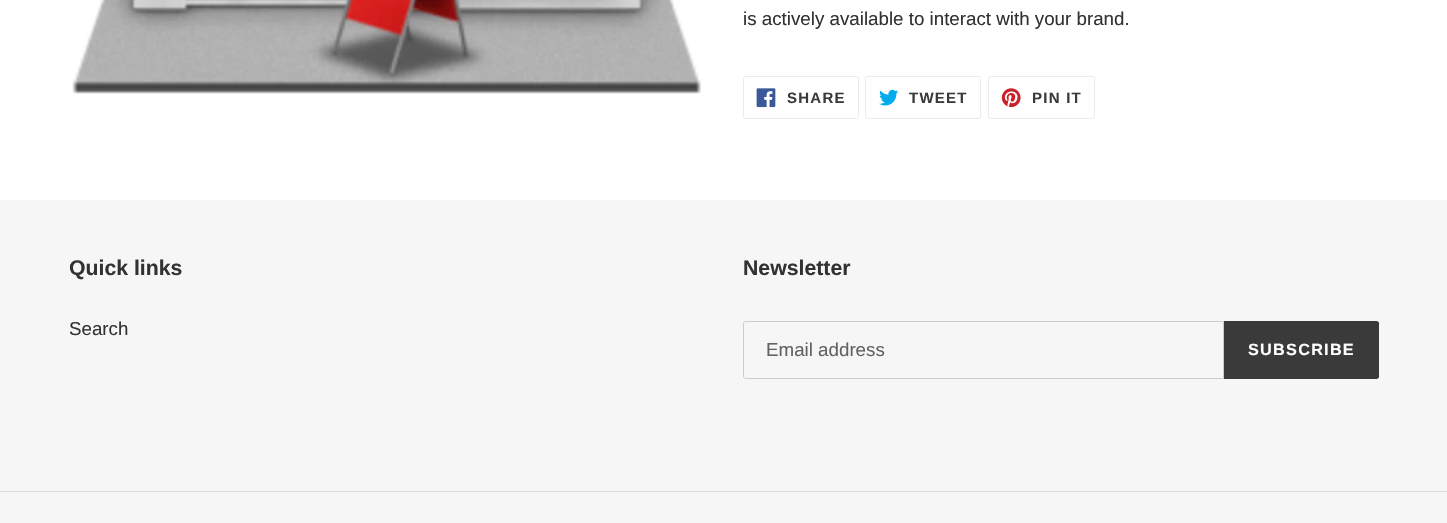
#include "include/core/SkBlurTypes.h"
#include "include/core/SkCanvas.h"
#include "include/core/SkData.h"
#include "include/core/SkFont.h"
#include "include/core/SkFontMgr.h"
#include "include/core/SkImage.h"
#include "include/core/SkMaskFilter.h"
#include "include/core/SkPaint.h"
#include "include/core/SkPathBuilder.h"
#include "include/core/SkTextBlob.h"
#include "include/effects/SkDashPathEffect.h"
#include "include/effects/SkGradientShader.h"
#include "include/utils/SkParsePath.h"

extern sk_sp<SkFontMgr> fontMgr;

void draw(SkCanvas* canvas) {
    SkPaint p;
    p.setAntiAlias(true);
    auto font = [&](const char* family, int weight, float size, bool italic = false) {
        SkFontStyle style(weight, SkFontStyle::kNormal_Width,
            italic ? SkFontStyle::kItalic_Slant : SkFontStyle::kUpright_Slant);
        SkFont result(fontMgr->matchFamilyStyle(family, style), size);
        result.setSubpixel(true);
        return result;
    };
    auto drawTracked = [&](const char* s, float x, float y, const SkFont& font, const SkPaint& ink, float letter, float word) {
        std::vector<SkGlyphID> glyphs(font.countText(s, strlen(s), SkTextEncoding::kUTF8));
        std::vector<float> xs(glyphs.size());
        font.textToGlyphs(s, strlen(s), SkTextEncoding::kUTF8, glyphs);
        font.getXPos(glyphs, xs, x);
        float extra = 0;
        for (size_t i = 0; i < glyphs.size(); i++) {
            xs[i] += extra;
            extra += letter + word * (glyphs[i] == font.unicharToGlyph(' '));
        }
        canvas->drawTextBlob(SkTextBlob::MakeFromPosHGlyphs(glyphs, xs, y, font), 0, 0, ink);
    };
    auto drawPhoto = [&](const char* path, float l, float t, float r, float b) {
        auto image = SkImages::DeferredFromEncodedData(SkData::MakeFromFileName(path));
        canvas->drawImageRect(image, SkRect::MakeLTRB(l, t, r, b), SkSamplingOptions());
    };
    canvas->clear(0xFFFFFFFF);
    drawPhoto("media/1.png", 72, 0, 701, 94);
    auto font1 = font("Liberation Sans", 400, 18.75f);
    p.setColor(0xFF333232);
    canvas->drawString("is actively available to interact with your brand.", 743, 25, font1, p);
    p.setStyle(SkPaint::kStroke_Style);
    p.setStrokeWidth(1);
    p.setColor(0xFFEBEBEB);
    canvas->drawRoundRect(SkRect::MakeLTRB(743.5f, 76.5f, 858.5f, 118.5f), 2, 2, p);
    drawPhoto("media/2.png", 756, 88, 776, 108);
    auto font2 = font("Liberation Sans", 700, 15);
    p.setStyle(SkPaint::kFill_Style);
    p.setColor(0xFF3A3A3A);
    drawTracked("SHARE", 787, 103, font2, p, 1.25f, 0);
    p.setStyle(SkPaint::kStroke_Style);
    p.setColor(0xFFEBEBEB);
    canvas->drawRoundRect(SkRect::MakeLTRB(865.5f, 76.5f, 980.5f, 118.5f), 2, 2, p);
    drawPhoto("media/3.png", 879, 89, 899, 106);
    p.setStyle(SkPaint::kFill_Style);
    p.setColor(0xFF3A3A3A);
    drawTracked("TWEET", 909, 103, font2, p, 1.25f, 0);
    p.setStyle(SkPaint::kStroke_Style);
    p.setColor(0xFFEBEBEB);
    canvas->drawRoundRect(SkRect::MakeLTRB(988.5f, 76.5f, 1094.5f, 118.5f), 2, 2, p);
    drawPhoto("media/4.png", 1001, 88, 1021, 108);
    p.setStyle(SkPaint::kFill_Style);
    p.setColor(0xFF3A3A3A);
    drawTracked("PIN IT", 1032, 103, font2, p, 1.25f, 0);
    p.setColor(0xFFF6F6F6);
    canvas->drawRect(SkRect::MakeLTRB(0, 200, 1447, 523), p);
    auto font3 = font("Liberation Sans", 700, 21.25f);
    p.setColor(0xFF333232);
    canvas->drawString("Quick links", 69, 275, font3, p);
    canvas->drawString("Search", 69, 335, font1, p);
    canvas->drawString("Newsletter", 743, 275, font3, p);
    p.setStyle(SkPaint::kStroke_Style);
    p.setColor(0xFFCCCCCC);
    canvas->drawPath(SkPathBuilder().moveTo(745.5f, 321.5f).lineTo(1223.5f, 321.5f).lineTo(1223.5f, 378.5f).lineTo(745.5f, 378.5f).cubicTo(744.5f, 378.5f, 743.5f, 377.5f, 743.5f, 376.5f).lineTo(743.5f, 323.5f).cubicTo(743.5f, 322.5f, 744.5f, 321.5f, 745.5f, 321.5f).close().detach(), p);
    p.setStyle(SkPaint::kFill_Style);
    p.setColor(0xFF626262);
    canvas->drawString("Email address", 766, 356, font1, p);
    p.setColor(0xFF3A3A3A);
    canvas->drawPath(SkPathBuilder().moveTo(1224, 321).lineTo(1376.5f, 321).cubicTo(1378, 321, 1379, 322, 1379, 323.5f).lineTo(1379, 376.5f).cubicTo(1379, 378, 1378, 379, 1376.5f, 379).lineTo(1224, 379).close().detach(), p);
    auto font4 = font("Liberation Sans", 700, 16.25f);
    p.setColor(0xFFFFFFFF);
    drawTracked("SUBSCRIBE", 1248, 355, font4, p, 1.25f, 0);
    p.setColor(0xFFDDDDDD);
    canvas->drawRect(SkRect::MakeLTRB(0, 491, 1447, 492), p);
}
